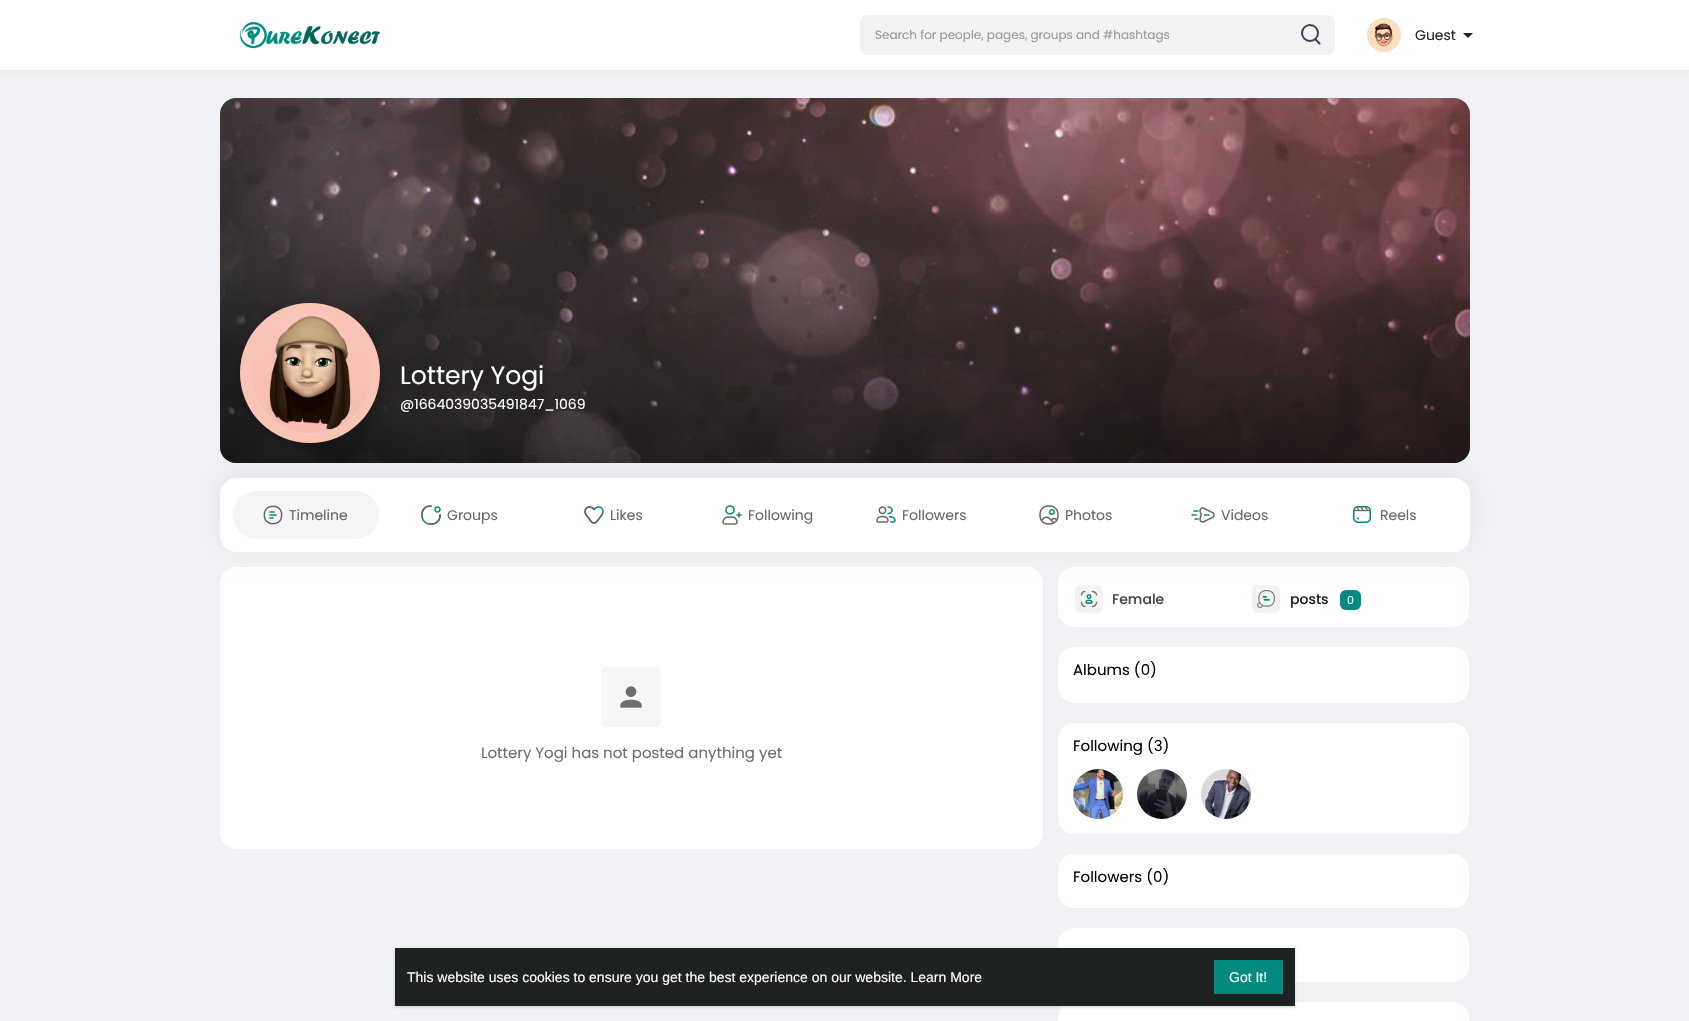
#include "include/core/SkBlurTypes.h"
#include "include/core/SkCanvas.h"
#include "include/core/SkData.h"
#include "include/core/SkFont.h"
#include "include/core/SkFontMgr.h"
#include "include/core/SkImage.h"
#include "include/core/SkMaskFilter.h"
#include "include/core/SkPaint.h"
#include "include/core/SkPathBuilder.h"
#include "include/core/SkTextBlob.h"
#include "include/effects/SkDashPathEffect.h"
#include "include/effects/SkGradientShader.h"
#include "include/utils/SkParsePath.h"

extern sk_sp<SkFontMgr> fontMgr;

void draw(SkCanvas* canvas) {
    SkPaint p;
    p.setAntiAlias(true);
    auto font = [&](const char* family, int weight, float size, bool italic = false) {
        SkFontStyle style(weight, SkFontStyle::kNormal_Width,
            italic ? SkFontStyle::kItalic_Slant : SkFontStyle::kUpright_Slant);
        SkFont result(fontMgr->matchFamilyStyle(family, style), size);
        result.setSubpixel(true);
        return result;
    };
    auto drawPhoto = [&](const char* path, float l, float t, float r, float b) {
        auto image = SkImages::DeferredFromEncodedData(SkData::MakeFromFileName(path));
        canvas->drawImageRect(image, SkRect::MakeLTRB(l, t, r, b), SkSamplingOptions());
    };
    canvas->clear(0xFFF0F2F5);
    p.setColor(0x0D000000);
    p.setMaskFilter(SkMaskFilter::MakeBlur(kNormal_SkBlurStyle, 3));
    canvas->drawRect(SkRect::MakeLTRB(0, 1, 1689, 71), p);
    p.setMaskFilter(nullptr);
    p.setColor(0xFFFFFFFF);
    canvas->drawRect(SkRect::MakeLTRB(0, 0, 1689, 70), p);
    drawPhoto("media/1.png", 239, 22, 381, 49);
    p.setColor(0xFFF2F2F2);
    canvas->drawRoundRect(SkRect::MakeLTRB(860, 15, 1335, 55), 8, 8, p);
    auto font1 = font("Poppins", 400, 12);
    p.setColor(0xFF999999);
    canvas->drawString("Search for people, pages, groups and #hashtags", 875, 39, font1, p);
    p.setStyle(SkPaint::kStroke_Style);
    p.setStrokeWidth(2);
    p.setColor(0xFF3F4354);
    canvas->drawCircle(1310, 33, 8, p);
    p.setStrokeCap(SkPaint::kRound_Cap);
    canvas->drawPath(SkPathBuilder().moveTo(1315.5f, 39.5f).lineTo(1319.5f, 43.5f).detach(), p);
    drawPhoto("media/2.png", 1367, 18, 1401, 52);
    auto font2 = font("Poppins", 400, 14);
    p.setStyle(SkPaint::kFill_Style);
    p.setColor(0xFF222222);
    canvas->drawString("Guest", 1415, 40, font2, p);
    canvas->drawPath(SkPathBuilder().moveTo(1463, 33).lineTo(1473, 33).lineTo(1468, 38).close().detach(), p);
    p.setColor(0xFFFFFFFF);
    canvas->drawRoundRect(SkRect::MakeLTRB(220, 98, 1470, 463), 16, 16, p);
    drawPhoto("media/3.png", 220, 98, 1470, 463);
    {
        const SkColor colors[] = {0x00000000, 0x73000000};
        const float stops[] = {0, 1};
        const SkPoint ends[] = {{845, 263}, {845, 463}};
        p.setShader(SkGradientShader::MakeLinear(ends, colors, stops, 2, SkTileMode::kClamp));
        p.setAlpha(255);
    }
    canvas->drawRoundRect(SkRect::MakeLTRB(220, 263, 1470, 463), 16, 16, p);
    p.setShader(nullptr);
    p.setColor(0x26000000);
    p.setMaskFilter(SkMaskFilter::MakeBlur(kNormal_SkBlurStyle, 5));
    canvas->drawRoundRect(SkRect::MakeLTRB(240, 305, 380, 445), 70, 70, p);
    p.setMaskFilter(nullptr);
    drawPhoto("media/4.png", 240, 303, 380, 443);
    auto font3 = font("Poppins", 400, 25);
    p.setColor(0xFFFFFFFF);
    canvas->drawString("Lottery Yogi", 400, 384, font3, p);
    canvas->drawString("@1664039035491847_1069", 400, 409, font2, p);
    canvas->drawRoundRect(SkRect::MakeLTRB(220, 567, 1043, 849), 16, 16, p);
    canvas->drawRoundRect(SkRect::MakeLTRB(1058, 567, 1469, 627), 16, 16, p);
    p.setColor(0xFFF3F3F3);
    canvas->drawRoundRect(SkRect::MakeLTRB(1075, 585, 1103, 613), 6, 6, p);
    drawPhoto("media/14.png", 1080, 590, 1098, 608);
    canvas->drawRoundRect(SkRect::MakeLTRB(1252, 585, 1280, 613), 6, 6, p);
    drawPhoto("media/15.png", 1257, 590, 1275, 608);
    p.setColor(0xFF028A7E);
    canvas->drawRoundRect(SkRect::MakeLTRB(1340, 590, 1361, 610), 6, 6, p);
    p.setColor(0x0F000000);
    p.setMaskFilter(SkMaskFilter::MakeBlur(kNormal_SkBlurStyle, 15));
    canvas->drawRoundRect(SkRect::MakeLTRB(220, 472, 1470, 546), 16, 16, p);
    p.setMaskFilter(nullptr);
    p.setColor(0xFFFFFFFF);
    canvas->drawRoundRect(SkRect::MakeLTRB(220, 478, 1470, 552), 16, 16, p);
    p.setColor(0xFFF5F5F5);
    canvas->drawRoundRect(SkRect::MakeLTRB(233, 491, 379, 539), 24, 24, p);
    drawPhoto("media/5.png", 263, 505, 283, 525);
    p.setColor(0xFF666666);
    canvas->drawString("Timeline", 289, 520, font2, p);
    drawPhoto("media/6.png", 421, 505, 441, 525);
    canvas->drawString("Groups", 447, 520, font2, p);
    drawPhoto("media/7.png", 584, 506, 604, 524);
    canvas->drawString("Likes", 610, 520, font2, p);
    drawPhoto("media/8.png", 722, 505, 742, 525);
    canvas->drawString("Following", 748, 520, font2, p);
    drawPhoto("media/9.png", 876, 506, 896, 523);
    canvas->drawString("Followers", 902, 520, font2, p);
    drawPhoto("media/10.png", 1039, 505, 1059, 525);
    canvas->drawString("Photos", 1065, 520, font2, p);
    drawPhoto("media/11.png", 1191, 507, 1215, 523);
    canvas->drawString("Videos", 1221, 520, font2, p);
    drawPhoto("media/12.png", 1353, 506, 1371, 523);
    canvas->drawString("Reels", 1380, 520, font2, p);
    p.setColor(0xFFF6F6F6);
    canvas->drawRoundRect(SkRect::MakeLTRB(601, 667, 661, 727), 6, 6, p);
    drawPhoto("media/13.png", 620, 686, 642, 708);
    auto font4 = font("Poppins", 400, 15);
    p.setColor(0xFF6D6D6D);
    canvas->drawString("Lottery Yogi has not posted anything yet", 481, 758, font4, p);
    auto font5 = font("Poppins", 500, 14);
    p.setColor(0xFF444444);
    canvas->drawString("Female", 1112, 604, font5, p);
    p.setColor(0xFF1D2129);
    canvas->drawString("posts", 1290, 604, font5, p);
    auto font6 = font("Poppins", 400, 11);
    p.setColor(0xFFFFFFFF);
    canvas->drawString("0", 1347, 604, font6, p);
    canvas->drawRoundRect(SkRect::MakeLTRB(1058, 647, 1469, 703), 16, 16, p);
    p.setColor(0xFF050505);
    canvas->drawString("Albums (0)", 1073, 675, font4, p);
    p.setColor(0xFFFFFFFF);
    canvas->drawRoundRect(SkRect::MakeLTRB(1058, 723, 1469, 834), 16, 16, p);
    p.setColor(0xFF050505);
    canvas->drawString("Following (3)", 1073, 751, font4, p);
    drawPhoto("media/16.png", 1073, 769, 1123, 819);
    drawPhoto("media/17.png", 1137, 769, 1187, 819);
    drawPhoto("media/18.png", 1201, 769, 1251, 819);
    p.setColor(0xFFFFFFFF);
    canvas->drawRoundRect(SkRect::MakeLTRB(1058, 854, 1469, 908), 16, 16, p);
    p.setColor(0xFF050505);
    canvas->drawString("Followers (0)", 1073, 882, font4, p);
    p.setColor(0xFFFFFFFF);
    canvas->drawRoundRect(SkRect::MakeLTRB(1058, 928, 1469, 982), 16, 16, p);
    canvas->drawRoundRect(SkRect::MakeLTRB(1058, 1002, 1469, 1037), 16, 16, p);
    p.setColor(0x0F000000);
    p.setMaskFilter(SkMaskFilter::MakeBlur(kNormal_SkBlurStyle, 1));
    canvas->drawRect(SkRect::MakeLTRB(395, 949, 1295, 1007), p);
    p.setMaskFilter(nullptr);
    p.setColor(0x1A000000);
    p.setMaskFilter(SkMaskFilter::MakeBlur(kNormal_SkBlurStyle, 1.5f));
    canvas->drawRect(SkRect::MakeLTRB(395, 949, 1295, 1007), p);
    p.setMaskFilter(nullptr);
    p.setColor(0xFF1E2321);
    canvas->drawRect(SkRect::MakeLTRB(395, 948, 1295, 1006), p);
    auto font7 = font("Liberation Sans", 400, 14);
    p.setColor(0xFFFFFFFF);
    canvas->drawString("This website uses cookies to ensure you get the best experience on our website. Learn More", 407, 982, font7, p);
    p.setColor(0xFF028A7E);
    canvas->drawRect(SkRect::MakeLTRB(1214, 960, 1283, 994), p);
    p.setColor(0xFFFFFFFF);
    canvas->drawString("Got It!", 1229, 982, font7, p);
}
